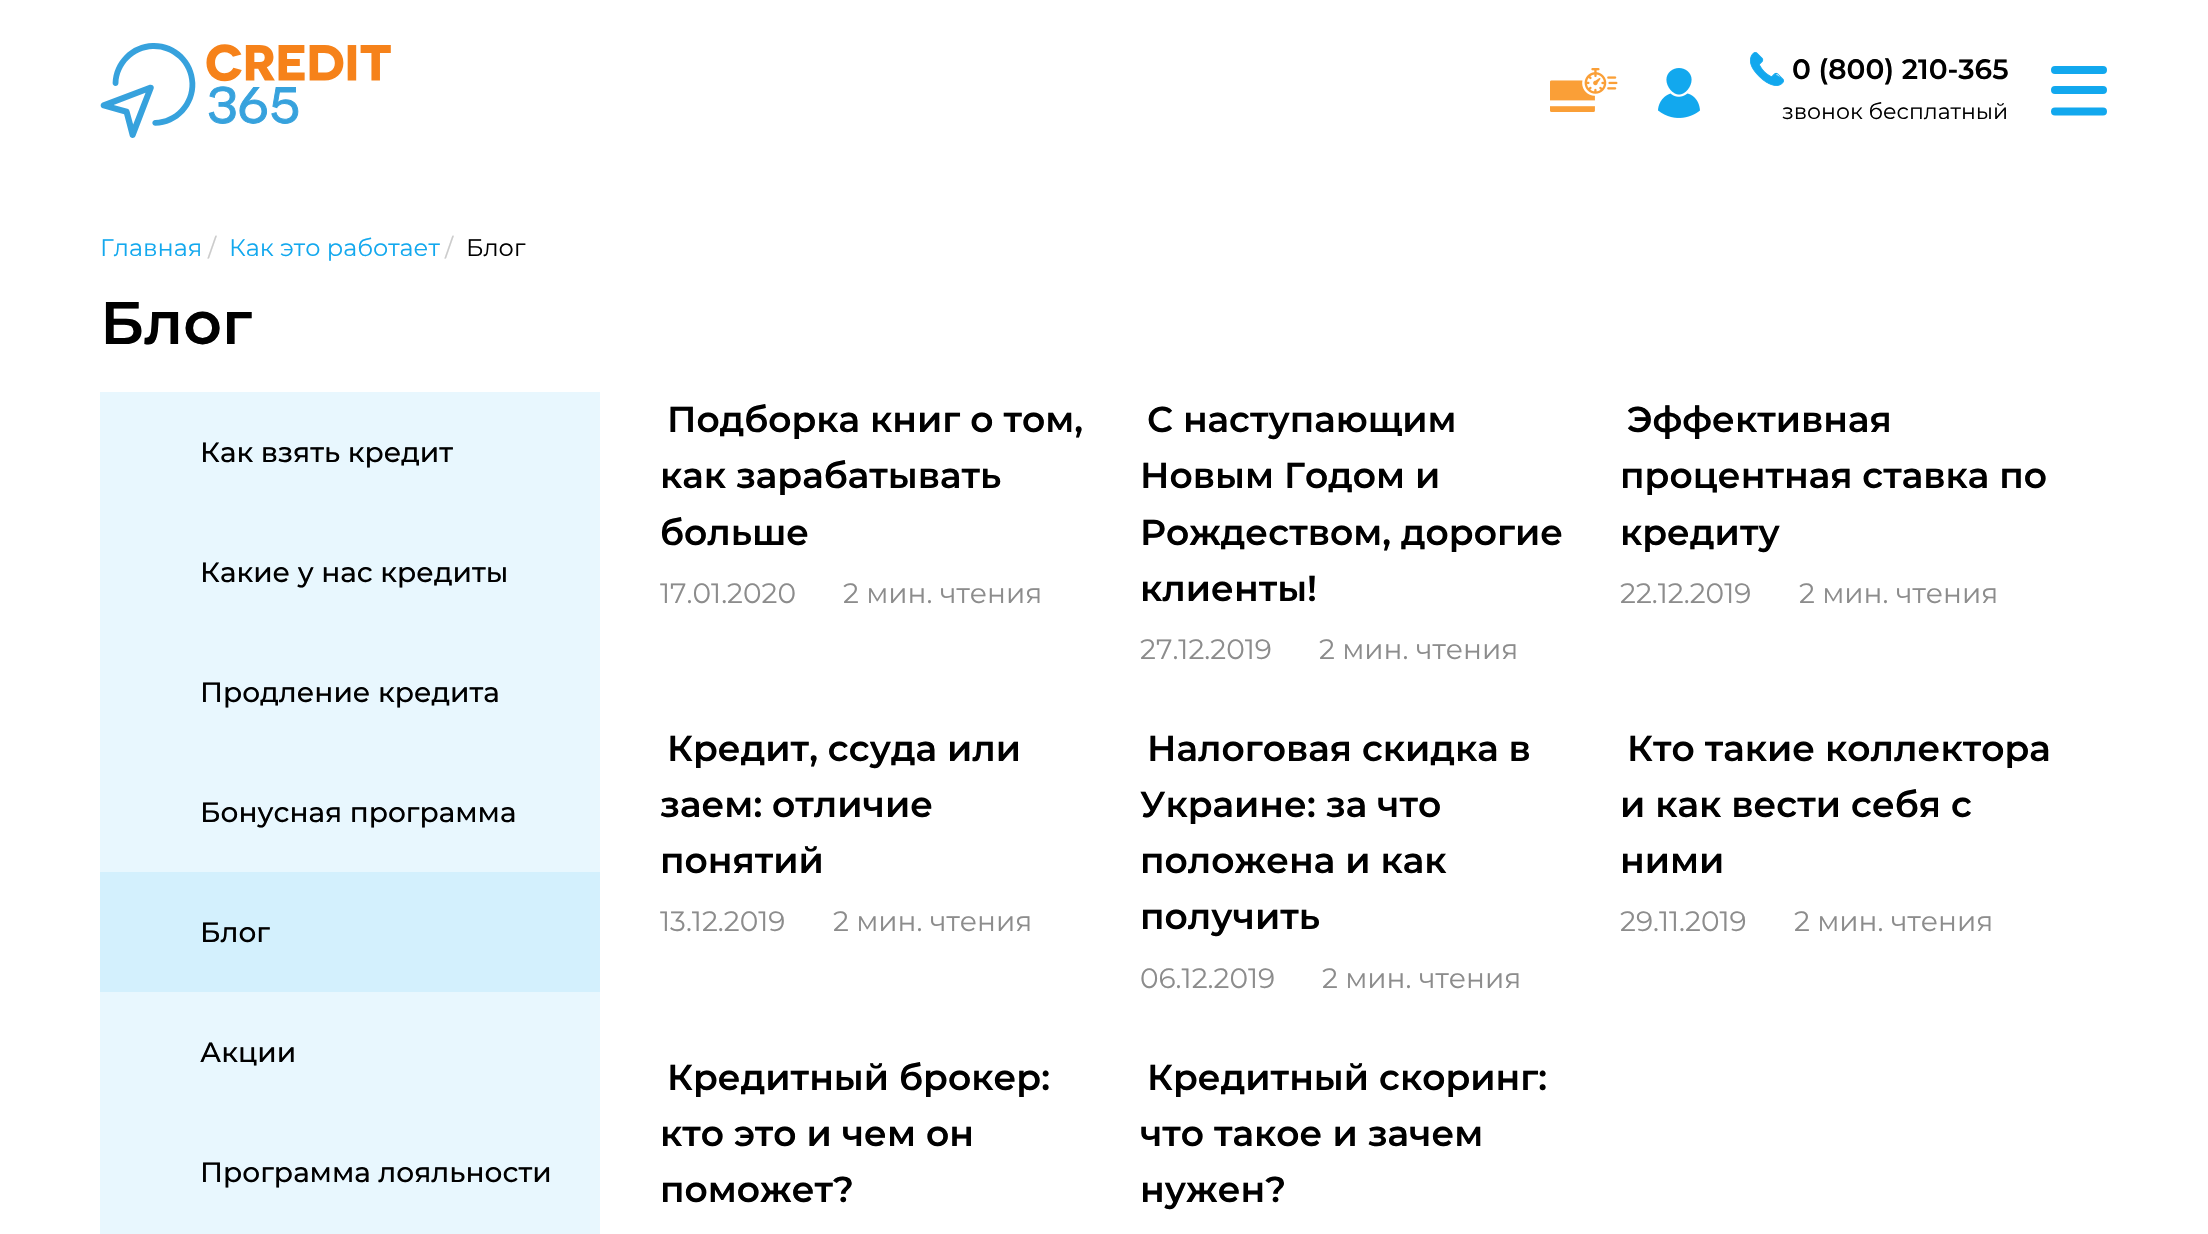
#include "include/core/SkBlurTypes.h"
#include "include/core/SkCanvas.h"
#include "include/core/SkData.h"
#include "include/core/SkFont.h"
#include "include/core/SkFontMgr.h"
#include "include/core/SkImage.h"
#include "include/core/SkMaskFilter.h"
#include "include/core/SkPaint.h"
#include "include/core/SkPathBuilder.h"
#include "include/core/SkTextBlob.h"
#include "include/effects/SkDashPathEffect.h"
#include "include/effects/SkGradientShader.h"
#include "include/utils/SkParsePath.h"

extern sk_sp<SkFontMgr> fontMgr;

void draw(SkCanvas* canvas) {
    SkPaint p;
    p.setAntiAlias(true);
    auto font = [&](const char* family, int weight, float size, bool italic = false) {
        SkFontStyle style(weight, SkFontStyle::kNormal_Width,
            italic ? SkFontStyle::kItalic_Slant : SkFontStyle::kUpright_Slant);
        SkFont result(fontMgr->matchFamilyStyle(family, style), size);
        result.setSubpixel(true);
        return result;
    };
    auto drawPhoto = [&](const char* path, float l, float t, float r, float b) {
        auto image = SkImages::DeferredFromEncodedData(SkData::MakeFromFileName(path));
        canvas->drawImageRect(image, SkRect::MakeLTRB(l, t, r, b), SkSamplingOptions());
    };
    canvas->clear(0xFFFFFFFF);
    drawPhoto("media/1.png", 100, 43, 391, 138);
    drawPhoto("media/2.png", 1550, 68, 1618, 112);
    drawPhoto("media/3.png", 1658, 68, 1700, 118);
    drawPhoto("media/4.png", 1750, 52, 1784, 86);
    auto font1 = font("Montserrat", 600, 28);
    p.setColor(0xFF000000);
    canvas->drawString("0 (800) 210-365", 1792, 79, font1, p);
    auto font2 = font("Montserrat", 400, 22);
    canvas->drawString("звонок бесплатный", 1782, 119, font2, p);
    p.setStyle(SkPaint::kStroke_Style);
    p.setStrokeWidth(8);
    p.setStrokeCap(SkPaint::kRound_Cap);
    p.setColor(0xFF12A8EE);
    canvas->drawPath(SkPathBuilder().moveTo(2055, 70).lineTo(2103, 70).moveTo(2055, 90).lineTo(2103, 90).moveTo(2055, 111.5f).lineTo(2103, 111.5f).detach(), p);
    auto font3 = font("Montserrat", 400, 24);
    p.setStyle(SkPaint::kFill_Style);
    canvas->drawString("Главная", 100, 256, font3, p);
    p.setColor(0xFFCCCCCC);
    canvas->drawString("/", 208, 256, font3, p);
    p.setColor(0xFF12A8EE);
    canvas->drawString("Как это работает", 229, 256, font3, p);
    p.setColor(0xFFCCCCCC);
    canvas->drawString("/", 445, 256, font3, p);
    p.setColor(0xFF000000);
    canvas->drawString("Блог", 466, 256, font3, p);
    auto font4 = font("Montserrat", 600, 60);
    canvas->drawString("Блог", 100, 344, font4, p);
    p.setColor(0xFFE8F7FE);
    canvas->drawRect(SkRect::MakeLTRB(100, 392, 600, 1234), p);
    auto font5 = font("Montserrat", 500, 28);
    p.setColor(0xFF000000);
    {
        const struct { const char* s; float x, y; } items[] = {
            {"Как взять кредит", 200, 462},
            {"Какие у нас кредиты", 200, 582},
            {"Продление кредита", 200, 702},
            {"Бонусная программа", 200, 822},
        };
        for (auto [s, x, y] : items) {
            canvas->drawString(s, x, y, font5, p);
        }
    }
    p.setColor(0xFFD3F0FD);
    canvas->drawRect(SkRect::MakeLTRB(100, 872, 600, 992), p);
    p.setColor(0xFF000000);
    {
        const struct { const char* s; float x, y; } items[] = {
            {"Блог", 200, 942},
            {"Акции", 200, 1062},
            {"Программа лояльности", 200, 1182},
        };
        for (auto [s, x, y] : items) {
            canvas->drawString(s, x, y, font5, p);
        }
    }
    auto font6 = font("Montserrat", 600, 36);
    {
        const struct { const char* s; float x, y; } items[] = {
            {"Подборка книг о том,", 667, 432},
            {"как зарабатывать", 660, 488},
            {"больше", 660, 545},
        };
        for (auto [s, x, y] : items) {
            canvas->drawString(s, x, y, font6, p);
        }
    }
    auto font7 = font("Montserrat", 400, 28);
    p.setColor(0xFF8C8C8C);
    canvas->drawString("17.01.2020", 660, 603, font7, p);
    canvas->drawString("2 мин. чтения", 843, 603, font7, p);
    p.setColor(0xFF000000);
    {
        const struct { const char* s; float x, y; } items[] = {
            {"С наступающим", 1147, 432},
            {"Новым Годом и", 1140, 488},
            {"Рождеством, дорогие", 1140, 545},
            {"клиенты!", 1140, 601},
        };
        for (auto [s, x, y] : items) {
            canvas->drawString(s, x, y, font6, p);
        }
    }
    p.setColor(0xFF8C8C8C);
    canvas->drawString("27.12.2019", 1140, 659, font7, p);
    canvas->drawString("2 мин. чтения", 1319, 659, font7, p);
    p.setColor(0xFF000000);
    {
        const struct { const char* s; float x, y; } items[] = {
            {"Эффективная", 1627, 432},
            {"процентная ставка по", 1620, 488},
            {"кредиту", 1620, 545},
        };
        for (auto [s, x, y] : items) {
            canvas->drawString(s, x, y, font6, p);
        }
    }
    p.setColor(0xFF8C8C8C);
    canvas->drawString("22.12.2019", 1620, 603, font7, p);
    canvas->drawString("2 мин. чтения", 1799, 603, font7, p);
    p.setColor(0xFF000000);
    {
        const struct { const char* s; float x, y; } items[] = {
            {"Кредит, ссуда или", 667, 761},
            {"заем: отличие", 660, 817},
            {"понятий", 660, 873},
        };
        for (auto [s, x, y] : items) {
            canvas->drawString(s, x, y, font6, p);
        }
    }
    p.setColor(0xFF8C8C8C);
    canvas->drawString("13.12.2019", 660, 931, font7, p);
    canvas->drawString("2 мин. чтения", 833, 931, font7, p);
    p.setColor(0xFF000000);
    {
        const struct { const char* s; float x, y; } items[] = {
            {"Налоговая скидка в", 1147, 761},
            {"Украине: за что", 1140, 817},
            {"положена и как", 1140, 873},
            {"получить", 1140, 929},
        };
        for (auto [s, x, y] : items) {
            canvas->drawString(s, x, y, font6, p);
        }
    }
    p.setColor(0xFF8C8C8C);
    canvas->drawString("06.12.2019", 1140, 988, font7, p);
    canvas->drawString("2 мин. чтения", 1322, 988, font7, p);
    p.setColor(0xFF000000);
    {
        const struct { const char* s; float x, y; } items[] = {
            {"Кто такие коллектора", 1627, 761},
            {"и как вести себя с", 1620, 817},
            {"ними", 1620, 873},
        };
        for (auto [s, x, y] : items) {
            canvas->drawString(s, x, y, font6, p);
        }
    }
    p.setColor(0xFF8C8C8C);
    canvas->drawString("29.11.2019", 1620, 931, font7, p);
    canvas->drawString("2 мин. чтения", 1794, 931, font7, p);
    p.setColor(0xFF000000);
    {
        const struct { const char* s; float x, y; } items[] = {
            {"Кредитный брокер:", 667, 1090},
            {"кто это и чем он", 660, 1146},
            {"поможет?", 660, 1202},
            {"Кредитный скоринг:", 1147, 1090},
            {"что такое и зачем", 1140, 1146},
            {"нужен?", 1140, 1202},
        };
        for (auto [s, x, y] : items) {
            canvas->drawString(s, x, y, font6, p);
        }
    }
}
